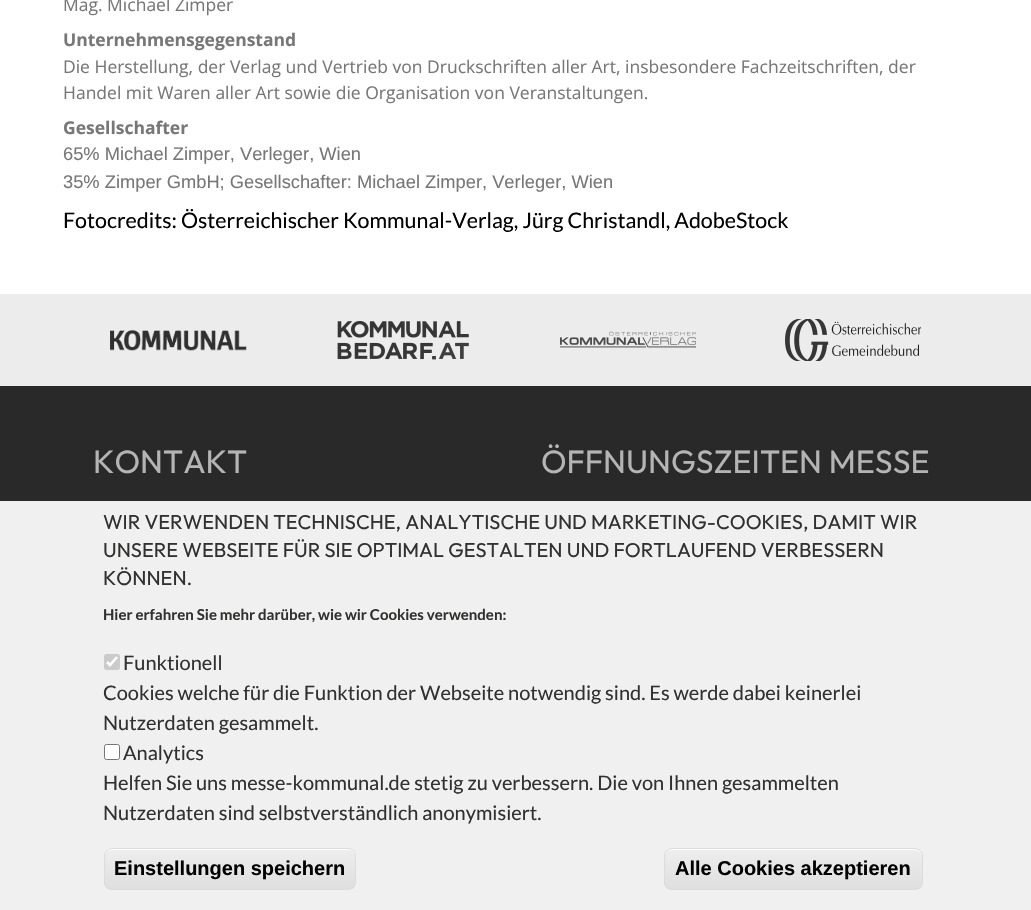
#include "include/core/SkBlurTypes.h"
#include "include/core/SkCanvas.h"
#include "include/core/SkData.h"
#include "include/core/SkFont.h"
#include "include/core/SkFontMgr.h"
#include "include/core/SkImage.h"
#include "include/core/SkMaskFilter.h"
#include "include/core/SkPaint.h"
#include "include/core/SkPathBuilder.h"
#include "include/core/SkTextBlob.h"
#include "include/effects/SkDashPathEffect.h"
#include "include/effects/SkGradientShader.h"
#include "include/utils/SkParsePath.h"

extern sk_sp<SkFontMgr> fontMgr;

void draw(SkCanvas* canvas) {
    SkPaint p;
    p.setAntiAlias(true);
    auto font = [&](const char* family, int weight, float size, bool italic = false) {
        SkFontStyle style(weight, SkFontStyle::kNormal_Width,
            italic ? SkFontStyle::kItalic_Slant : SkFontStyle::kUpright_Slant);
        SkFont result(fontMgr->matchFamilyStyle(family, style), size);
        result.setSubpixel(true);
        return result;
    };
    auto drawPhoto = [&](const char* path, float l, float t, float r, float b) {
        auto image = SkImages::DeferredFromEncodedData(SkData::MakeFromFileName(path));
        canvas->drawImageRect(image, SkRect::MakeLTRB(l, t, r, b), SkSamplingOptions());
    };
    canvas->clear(0xFFFFFFFF);
    auto font1 = font("Open Sans", 400, 17.5f);
    p.setColor(0xFF777777);
    canvas->drawString("Mag. Michael Zimper", 63, 11, font1, p);
    auto font2 = font("Open Sans", 700, 17.5f);
    canvas->drawString("Unternehmensgegenstand", 63, 46, font2, p);
    canvas->drawString("Die Herstellung, der Verlag und Vertrieb von Druckschriften aller Art, insbesondere Fachzeitschriften, der", 63, 73, font1, p);
    canvas->drawString("Handel mit Waren aller Art sowie die Organisation von Veranstaltungen.", 63, 99, font1, p);
    canvas->drawString("Gesellschafter", 63, 134, font2, p);
    auto font3 = font("Liberation Sans", 400, 18.3f);
    canvas->drawString("65% Michael Zimper, Verleger, Wien", 63, 160, font3, p);
    canvas->drawString("35% Zimper GmbH; Gesellschafter: Michael Zimper, Verleger, Wien", 63, 188, font3, p);
    auto font4 = font("Lato", 400, 21.4f);
    p.setColor(0xFF000000);
    canvas->drawString("Fotocredits: Österreichischer Kommunal-Verlag, Jürg Christandl, AdobeStock", 63, 228, font4, p);
    p.setColor(0xFFECECEC);
    canvas->drawRect(SkRect::MakeLTRB(0, 294, 1031, 386), p);
    drawPhoto("media/1.png", 110, 330, 247, 351);
    drawPhoto("media/2.png", 337, 321, 469, 360);
    drawPhoto("media/3.png", 560, 331, 696, 348);
    drawPhoto("media/4.png", 785, 319, 921, 361);
    p.setColor(0xFF292929);
    canvas->drawRect(SkRect::MakeLTRB(0, 386, 1031, 501), p);
    auto font5 = font("Outfit", 400, 32.25f);
    p.setColor(0xFFB4B4B4);
    canvas->drawString("KONTAKT", 93, 473, font5, p);
    canvas->drawString("ÖFFNUNGSZEITEN MESSE", 541, 473, font5, p);
    p.setColor(0xFFF0F0F0);
    canvas->drawRect(SkRect::MakeLTRB(0, 501, 1031, 910), p);
    auto font6 = font("Outfit", 400, 20);
    p.setColor(0xFF313130);
    {
        const struct { const char* s; float x, y; } items[] = {
            {"WIR VERWENDEN TECHNISCHE, ANALYTISCHE UND MARKETING-COOKIES, DAMIT WIR", 103, 529},
            {"UNSERE WEBSEITE FÜR SIE OPTIMAL GESTALTEN UND FORTLAUFEND VERBESSERN", 103, 557},
            {"KÖNNEN.", 103, 585},
        };
        for (auto [s, x, y] : items) {
            canvas->drawString(s, x, y, font6, p);
        }
    }
    auto font7 = font("Lato", 700, 15);
    canvas->drawString("Hier erfahren Sie mehr darüber, wie wir Cookies verwenden:", 103, 620, font7, p);
    p.setColor(0xFFCBCBCB);
    canvas->drawRoundRect(SkRect::MakeLTRB(104, 654, 120, 670), 2.5f, 2.5f, p);
    p.setStyle(SkPaint::kStroke_Style);
    p.setStrokeWidth(2.6f);
    p.setColor(0xFFFFFFFF);
    canvas->drawPath(SkPathBuilder().moveTo(107, 662).lineTo(110, 665).lineTo(117, 657).detach(), p);
    auto font8 = font("Lato", 400, 20);
    p.setStyle(SkPaint::kFill_Style);
    p.setColor(0xFF313130);
    {
        const struct { const char* s; float x, y; } items[] = {
            {"Funktionell", 123, 670},
            {"Cookies welche für die Funktion der Webseite notwendig sind. Es werde dabei keinerlei", 103, 700},
            {"Nutzerdaten gesammelt.", 103, 730},
        };
        for (auto [s, x, y] : items) {
            canvas->drawString(s, x, y, font8, p);
        }
    }
    p.setColor(0xFFFFFFFF);
    canvas->drawRoundRect(SkRect::MakeLTRB(104.5f, 744.5f, 119.5f, 759.5f), 2, 2, p);
    p.setStyle(SkPaint::kStroke_Style);
    p.setStrokeWidth(1);
    p.setColor(0xFF767676);
    canvas->drawRoundRect(SkRect::MakeLTRB(104.5f, 744.5f, 119.5f, 759.5f), 2, 2, p);
    p.setStyle(SkPaint::kFill_Style);
    p.setColor(0xFF313130);
    {
        const struct { const char* s; float x, y; } items[] = {
            {"Analytics", 123, 760},
            {"Helfen Sie uns messe-kommunal.de stetig zu verbessern. Die von Ihnen gesammelten", 103, 790},
            {"Nutzerdaten sind selbstverständlich anonymisiert.", 103, 820},
        };
        for (auto [s, x, y] : items) {
            canvas->drawString(s, x, y, font8, p);
        }
    }
    canvas->save();
    canvas->clipPath(SkPathBuilder().moveTo(112, 848).lineTo(348, 848).cubicTo(352.5f, 848, 356, 851.5f, 356, 856).lineTo(356, 882).cubicTo(356, 886.5f, 352.5f, 890, 348, 890).lineTo(112, 890).cubicTo(107.5f, 890, 104, 886.5f, 104, 882).lineTo(104, 856).cubicTo(104, 851.5f, 107.5f, 848, 112, 848).close().detach(), true);
    {
        const SkColor colors[] = {0xFFEDEDED, 0xFFDFDFDF};
        const float stops[] = {0.05f, 1};
        const SkPoint ends[] = {{230, 849}, {230, 889}};
        p.setShader(SkGradientShader::MakeLinear(ends, colors, stops, 2, SkTileMode::kClamp));
        p.setAlpha(255);
    }
    canvas->drawRect(SkRect::MakeLTRB(104, 849, 356, 889), p);
    canvas->restore();
    p.setShader(nullptr);
    p.setColor(0xFFFFFFFF);
    canvas->drawPath(SkPathBuilder().moveTo(111, 850).lineTo(349, 850).cubicTo(352, 850, 355, 853, 355, 856).cubicTo(355, 852, 353, 849, 349, 849).lineTo(110, 849).cubicTo(106, 850, 105, 853, 105, 856).cubicTo(105, 853, 108, 850, 111, 850).close().detach(), p);
    p.setStyle(SkPaint::kStroke_Style);
    p.setColor(0xFFDCDCDC);
    canvas->drawRoundRect(SkRect::MakeLTRB(104.5f, 848.5f, 355.5f, 889.5f), 7.5f, 7.5f, p);
    auto font9 = font("Liberation Sans", 700, 20);
    p.setStyle(SkPaint::kFill_Style);
    p.setColor(0xFF000000);
    canvas->drawString("Einstellungen speichern", 114, 875, font9, p);
    canvas->save();
    canvas->clipPath(SkPathBuilder().moveTo(672, 848).lineTo(915, 848).cubicTo(919.5f, 848, 923, 851.5f, 923, 856).lineTo(923, 882).cubicTo(923, 886.5f, 919.5f, 890, 915, 890).lineTo(672, 890).cubicTo(667.5f, 890, 664, 886.5f, 664, 882).lineTo(664, 856).cubicTo(664, 851.5f, 667.5f, 848, 672, 848).close().detach(), true);
    {
        const SkColor colors[] = {0xFFEDEDED, 0xFFDFDFDF};
        const float stops[] = {0.05f, 1};
        const SkPoint ends[] = {{793, 849}, {793, 889}};
        p.setShader(SkGradientShader::MakeLinear(ends, colors, stops, 2, SkTileMode::kClamp));
        p.setAlpha(255);
    }
    canvas->drawRect(SkRect::MakeLTRB(664, 849, 923, 889), p);
    canvas->restore();
    p.setShader(nullptr);
    p.setColor(0xFFFFFFFF);
    canvas->drawPath(SkPathBuilder().moveTo(671, 850).lineTo(915, 850).cubicTo(918, 850, 921, 853, 921, 856).lineTo(921, 855).cubicTo(921, 852, 918, 849, 915, 849).lineTo(671, 849).cubicTo(668, 849, 665, 852, 665, 855).lineTo(665, 856).cubicTo(665, 853, 668, 850, 671, 850).close().detach(), p);
    p.setStyle(SkPaint::kStroke_Style);
    p.setColor(0xFFDCDCDC);
    canvas->drawRoundRect(SkRect::MakeLTRB(664.5f, 848.5f, 922.5f, 889.5f), 7.5f, 7.5f, p);
    p.setStyle(SkPaint::kFill_Style);
    p.setColor(0xFF000000);
    canvas->drawString("Alle Cookies akzeptieren", 675, 875, font9, p);
}
